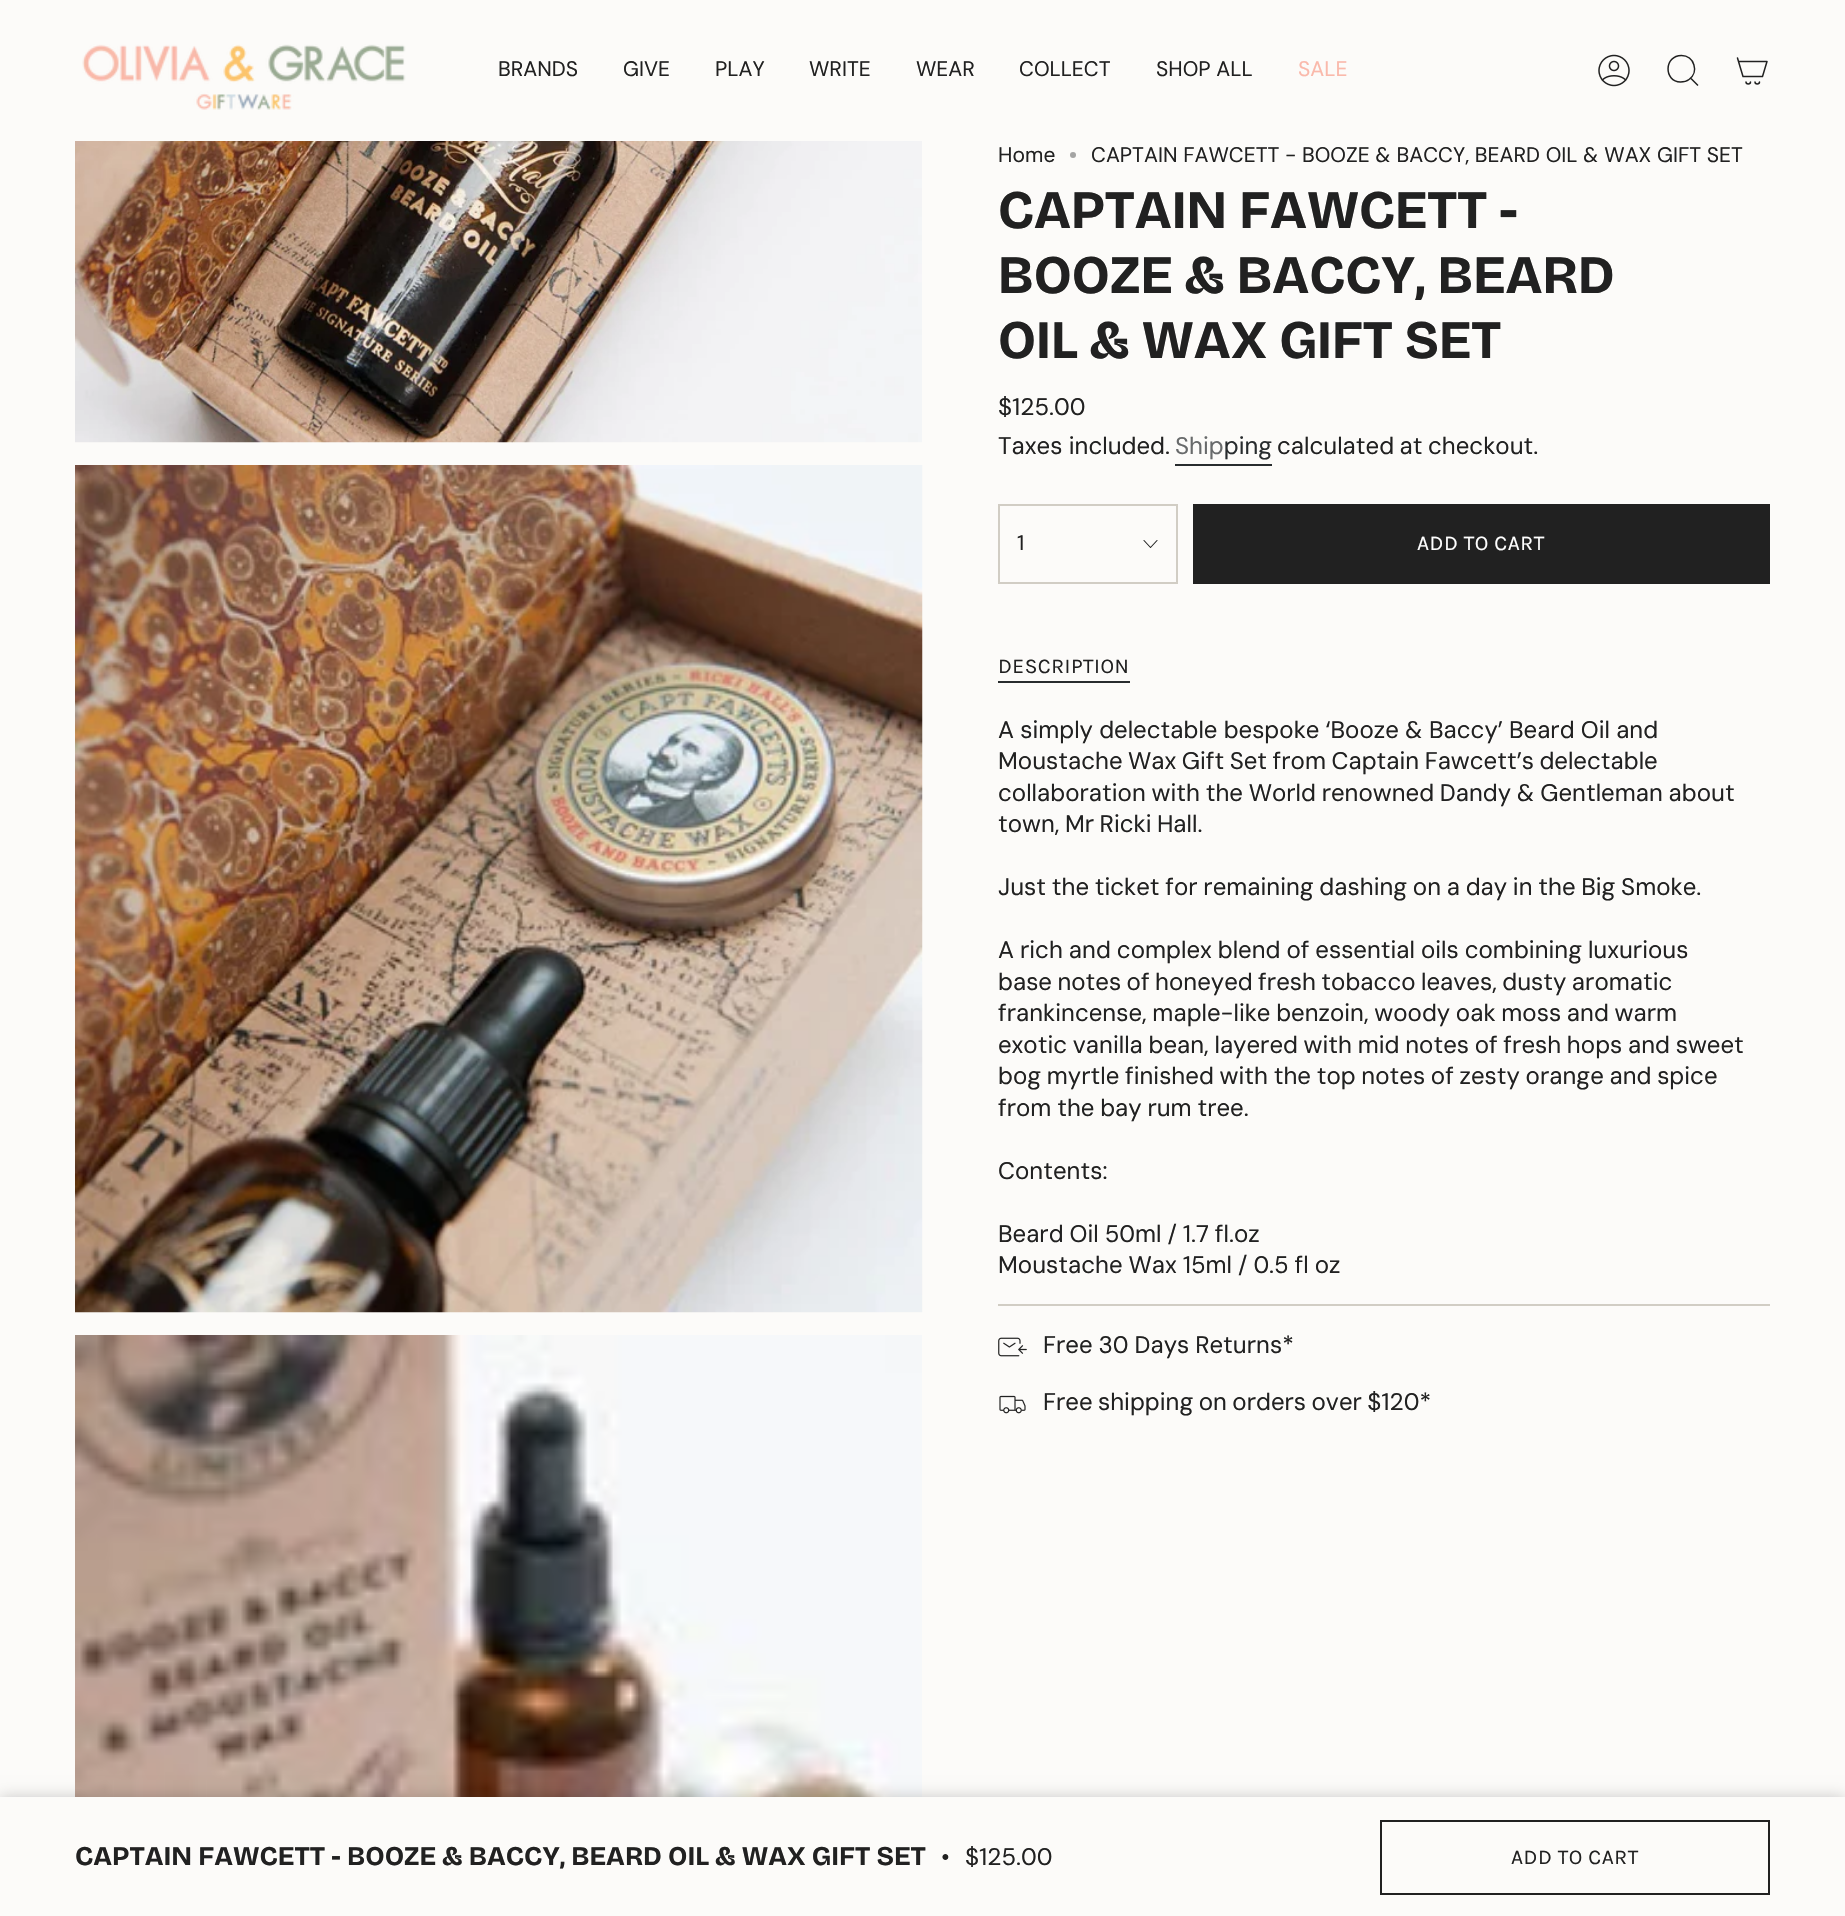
#include "include/core/SkBlurTypes.h"
#include "include/core/SkCanvas.h"
#include "include/core/SkData.h"
#include "include/core/SkFont.h"
#include "include/core/SkFontMgr.h"
#include "include/core/SkImage.h"
#include "include/core/SkMaskFilter.h"
#include "include/core/SkPaint.h"
#include "include/core/SkPathBuilder.h"
#include "include/core/SkTextBlob.h"
#include "include/effects/SkDashPathEffect.h"
#include "include/effects/SkGradientShader.h"
#include "include/utils/SkParsePath.h"

extern sk_sp<SkFontMgr> fontMgr;

void draw(SkCanvas* canvas) {
    SkPaint p;
    p.setAntiAlias(true);
    auto font = [&](const char* family, int weight, float size, bool italic = false) {
        SkFontStyle style(weight, SkFontStyle::kNormal_Width,
            italic ? SkFontStyle::kItalic_Slant : SkFontStyle::kUpright_Slant);
        SkFont result(fontMgr->matchFamilyStyle(family, style), size);
        result.setSubpixel(true);
        return result;
    };
    auto drawTracked = [&](const char* s, float x, float y, const SkFont& font, const SkPaint& ink, float letter, float word) {
        std::vector<SkGlyphID> glyphs(font.countText(s, strlen(s), SkTextEncoding::kUTF8));
        std::vector<float> xs(glyphs.size());
        font.textToGlyphs(s, strlen(s), SkTextEncoding::kUTF8, glyphs);
        font.getXPos(glyphs, xs, x);
        float extra = 0;
        for (size_t i = 0; i < glyphs.size(); i++) {
            xs[i] += extra;
            extra += letter + word * (glyphs[i] == font.unicharToGlyph(' '));
        }
        canvas->drawTextBlob(SkTextBlob::MakeFromPosHGlyphs(glyphs, xs, y, font), 0, 0, ink);
    };
    auto drawPhoto = [&](const char* path, float l, float t, float r, float b) {
        auto image = SkImages::DeferredFromEncodedData(SkData::MakeFromFileName(path));
        canvas->drawImageRect(image, SkRect::MakeLTRB(l, t, r, b), SkSamplingOptions());
    };
    canvas->clear(0xFFFCFBF9);
    drawPhoto("media/1.png", 82, 44, 406, 110);
    auto font1 = font("DM Sans", 400, 21);
    p.setColor(0xFF212121);
    {
        const struct { const char* s; float x, y; } items[] = {
            {"BRANDS", 498, 76},
            {"GIVE", 623, 76},
            {"PLAY", 715, 76},
            {"WRITE", 809, 76},
            {"WEAR", 916, 76},
            {"COLLECT", 1019, 76},
            {"SHOP ALL", 1156, 76},
        };
        for (auto [s, x, y] : items) {
            canvas->drawString(s, x, y, font1, p);
        }
    }
    p.setColor(0xFFFAB9AB);
    canvas->drawString("SALE", 1298, 76, font1, p);
    drawPhoto("media/2.png", 1598, 54, 1630, 87);
    p.setStyle(SkPaint::kStroke_Style);
    p.setStrokeWidth(1.5f);
    p.setColor(0xFF212121);
    canvas->drawPath(SkPathBuilder().moveTo(1681.5f, 55.5f).cubicTo(1694, 55.5f, 1699.5f, 72, 1689, 79.5f).cubicTo(1686.5f, 81.5f, 1683.5f, 82, 1680.5f, 82).cubicTo(1663.5f, 81.5f, 1664, 55.5f, 1681.5f, 55.5f).close().moveTo(1690.5f, 78).lineTo(1698, 85.5f).detach(), p);
    p.setStrokeCap(SkPaint::kRound_Cap);
    p.setStrokeJoin(SkPaint::kRound_Join);
    canvas->drawPath(SkPathBuilder().moveTo(1738.5f, 61.5f).lineTo(1767, 61.5f).lineTo(1762.5f, 76.5f).lineTo(1743, 76.5f).close().moveTo(1738.5f, 61.5f).lineTo(1737.5f, 58).moveTo(1750.5f, 82).cubicTo(1750.5f, 84.5f, 1746, 84.5f, 1746, 82).moveTo(1759.5f, 82).cubicTo(1759.5f, 84.5f, 1755, 84.5f, 1755, 82).detach(), p);
    drawPhoto("media/3.png", 75, 141, 922, 443);
    drawPhoto("media/4.png", 75, 465, 923, 1313);
    drawPhoto("media/5.png", 75, 1335, 922, 1797);
    p.setStyle(SkPaint::kFill_Style);
    canvas->drawString("Home", 998, 162, font1, p);
    p.setColor(0xFFA4A4A3);
    canvas->drawCircle(1073, 155, 3, p);
    p.setColor(0xFF212121);
    canvas->drawString("CAPTAIN FAWCETT - BOOZE & BACCY, BEARD OIL & WAX GIFT SET", 1091, 162, font1, p);
    auto font2 = font("Bricolage Grotesque", 700, 54);
    {
        const struct { const char* s; float x, y; } items[] = {
            {"CAPTAIN FAWCETT -", 998, 228},
            {"BOOZE & BACCY, BEARD", 998, 293},
            {"OIL & WAX GIFT SET", 998, 358},
        };
        for (auto [s, x, y] : items) {
            canvas->drawString(s, x, y, font2, p);
        }
    }
    auto font3 = font("DM Sans", 400, 24);
    canvas->drawString("$125.00", 998, 415, font3, p);
    canvas->drawString("Taxes included.", 998, 454, font3, p);
    {
        const SkColor colors[] = {0xFF686A6B, 0xFF686A6B, 0xFF282C2E, 0xFF282C2E};
        const float stops[] = {0, 0.5f, 0.5f, 1};
        const SkPoint ends[] = {{1175, 447}, {1272, 447}};
        p.setShader(SkGradientShader::MakeLinear(ends, colors, stops, 4, SkTileMode::kClamp));
        p.setAlpha(255);
    }
    canvas->drawString("Shipping", 1175, 454, font3, p);
    p.setShader(nullptr);
    p.setColor(0xFF282C2E);
    canvas->drawRect(SkRect::MakeLTRB(1175, 464, 1272, 466), p);
    p.setColor(0xFF212121);
    drawTracked("calculated at checkout.", 1277, 454, font3, p, 0, -1);
    p.setStyle(SkPaint::kStroke_Style);
    p.setStrokeWidth(2);
    p.setStrokeCap(SkPaint::kButt_Cap);
    p.setStrokeJoin(SkPaint::kMiter_Join);
    p.setColor(0xFFD1CDC4);
    canvas->drawRect(SkRect::MakeLTRB(999, 505, 1177, 583), p);
    p.setStyle(SkPaint::kFill_Style);
    p.setColor(0xFF212121);
    canvas->drawString("1", 1017, 550, font1, p);
    p.setStyle(SkPaint::kStroke_Style);
    p.setStrokeWidth(1.1f);
    p.setStrokeCap(SkPaint::kRound_Cap);
    p.setStrokeJoin(SkPaint::kRound_Join);
    canvas->drawPath(SkPathBuilder().moveTo(1144, 540.5f).lineTo(1150.5f, 547.5f).lineTo(1157, 540.5f).detach(), p);
    p.setStyle(SkPaint::kFill_Style);
    canvas->drawRect(SkRect::MakeLTRB(1193, 504, 1770, 584), p);
    auto font4 = font("Karla", 400, 21);
    p.setColor(0xFFFFFFFF);
    drawTracked("ADD TO CART", 1417, 550, font4, p, 0.5f, 0);
    p.setColor(0xFF212121);
    drawTracked("DESCRIPTION", 998, 673, font4, p, 0.5f, 0);
    p.setColor(0xFF282C2E);
    canvas->drawRect(SkRect::MakeLTRB(998, 681, 1130, 683), p);
    p.setColor(0xFF212121);
    drawTracked("A simply delectable bespoke ‘Booze & Baccy’ Beard Oil and", 998, 738, font3, p, 0, -0.25f);
    drawTracked("Moustache Wax Gift Set from Captain Fawcett’s delectable", 998, 769, font3, p, 0, -1);
    drawTracked("collaboration with the World renowned Dandy & Gentleman about", 998, 801, font3, p, 0, -0.75f);
    drawTracked("town, Mr Ricki Hall.", 998, 832, font3, p, 0, -1);
    drawTracked("Just the ticket for remaining dashing on a day in the Big Smoke.", 998, 895, font3, p, 0, -0.75f);
    drawTracked("A rich and complex blend of essential oils combining luxurious", 998, 958, font3, p, 0, -0.5f);
    drawTracked("base notes of honeyed fresh tobacco leaves, dusty aromatic", 998, 990, font3, p, 0, -1);
    {
        const struct { const char* s; float x, y; } items[] = {
            {"frankincense, maple-like benzoin, woody oak moss and warm", 998, 1021},
            {"exotic vanilla bean, layered with mid notes of fresh hops and sweet", 998, 1053},
            {"bog myrtle finished with the top notes of zesty orange and spice", 998, 1084},
            {"from the bay rum tree.", 998, 1116},
        };
        for (auto [s, x, y] : items) {
            drawTracked(s, x, y, font3, p, 0, -0.75f);
        }
    }
    canvas->drawString("Contents:", 998, 1179, font3, p);
    drawTracked("Beard Oil 50ml / 1.7 fl.oz", 998, 1242, font3, p, 0, -0.5f);
    drawTracked("Moustache Wax 15ml / 0.5 fl oz", 998, 1273, font3, p, 0, -0.5f);
    p.setColor(0xFFD1CDC4);
    canvas->drawRect(SkRect::MakeLTRB(998, 1304, 1770, 1306), p);
    drawPhoto("media/6.png", 998, 1337, 1027, 1357);
    p.setColor(0xFF212121);
    drawTracked("Free 30 Days Returns*", 1043, 1353, font3, p, 0, -0.5f);
    drawPhoto("media/7.png", 999, 1395, 1026, 1414);
    drawTracked("Free shipping on orders over $120*", 1043, 1410, font3, p, 0, -1);
    p.setColor(0x33000000);
    p.setMaskFilter(SkMaskFilter::MakeBlur(kNormal_SkBlurStyle, 7.5f));
    canvas->drawRect(SkRect::MakeLTRB(0, 1797, 1845, 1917), p);
    p.setMaskFilter(nullptr);
    p.setColor(0xFFFCFBF9);
    canvas->drawRect(SkRect::MakeLTRB(0, 1797, 1845, 1916), p);
    auto font5 = font("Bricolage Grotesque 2", 700, 27);
    p.setColor(0xFF212121);
    canvas->drawString("CAPTAIN FAWCETT - BOOZE & BACCY, BEARD OIL & WAX GIFT SET", 75, 1865, font5, p);
    canvas->drawString("•", 941, 1865, font3, p);
    canvas->drawString("$125.00", 965, 1865, font3, p);
    p.setStyle(SkPaint::kStroke_Style);
    p.setStrokeWidth(2);
    p.setStrokeCap(SkPaint::kButt_Cap);
    p.setStrokeJoin(SkPaint::kMiter_Join);
    canvas->drawRect(SkRect::MakeLTRB(1381, 1821, 1769, 1894), p);
    p.setStyle(SkPaint::kFill_Style);
    drawTracked("ADD TO CART", 1511, 1864, font4, p, 0.5f, 0);
    p.setColor(0xFFFCFBF9);
    canvas->drawPath(SkPathBuilder().moveTo(1563.5f, 1857).lineTo(1564.5f, 1856).lineTo(1573, 1864.5f).lineTo(1572, 1865.5f).close().detach(), p);
}
